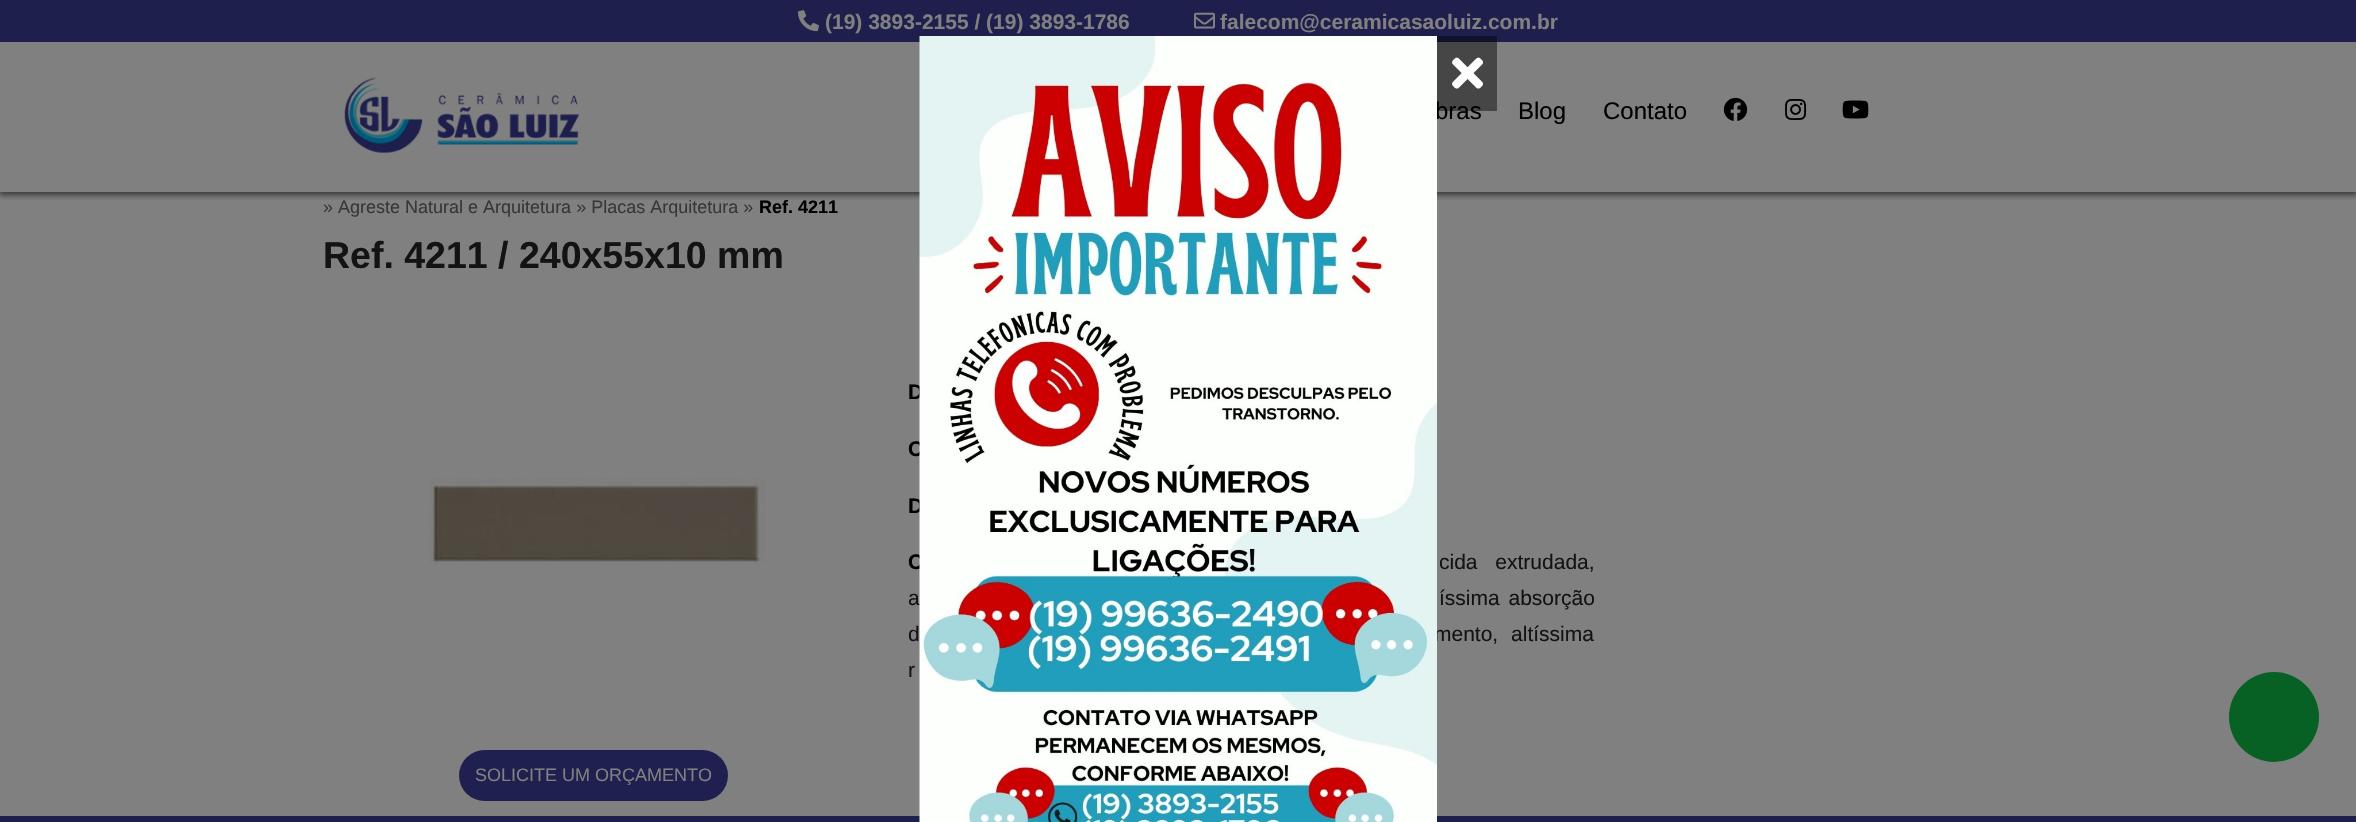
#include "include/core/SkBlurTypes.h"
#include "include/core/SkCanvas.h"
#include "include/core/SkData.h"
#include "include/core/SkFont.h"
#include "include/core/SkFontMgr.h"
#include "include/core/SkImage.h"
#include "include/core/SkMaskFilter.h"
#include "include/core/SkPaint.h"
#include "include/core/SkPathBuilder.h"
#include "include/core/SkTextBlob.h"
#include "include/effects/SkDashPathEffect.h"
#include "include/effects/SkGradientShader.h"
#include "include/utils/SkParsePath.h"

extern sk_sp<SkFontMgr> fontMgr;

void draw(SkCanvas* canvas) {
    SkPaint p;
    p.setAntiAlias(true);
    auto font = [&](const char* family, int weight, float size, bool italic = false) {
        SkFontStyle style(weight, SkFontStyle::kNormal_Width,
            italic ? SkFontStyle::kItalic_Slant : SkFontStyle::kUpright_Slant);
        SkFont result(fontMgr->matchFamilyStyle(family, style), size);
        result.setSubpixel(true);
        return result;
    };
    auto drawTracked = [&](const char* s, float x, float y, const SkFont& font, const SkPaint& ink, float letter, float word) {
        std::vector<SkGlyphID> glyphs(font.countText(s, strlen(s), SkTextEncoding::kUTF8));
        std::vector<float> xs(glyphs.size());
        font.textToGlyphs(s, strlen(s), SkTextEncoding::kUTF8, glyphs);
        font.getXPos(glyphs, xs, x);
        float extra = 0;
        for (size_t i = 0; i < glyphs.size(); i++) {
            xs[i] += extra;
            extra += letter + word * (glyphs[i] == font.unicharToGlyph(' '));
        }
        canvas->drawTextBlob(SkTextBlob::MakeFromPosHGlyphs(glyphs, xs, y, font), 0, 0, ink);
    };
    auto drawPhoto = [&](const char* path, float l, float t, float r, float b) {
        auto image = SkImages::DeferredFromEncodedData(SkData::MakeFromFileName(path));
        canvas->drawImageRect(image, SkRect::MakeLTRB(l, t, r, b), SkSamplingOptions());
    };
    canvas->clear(0xFF808080);
    canvas->save();
    canvas->clipRect(SkRect::MakeLTRB(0, 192, 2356, 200));
    p.setColor(0x94000000);
    p.setMaskFilter(SkMaskFilter::MakeBlur(kNormal_SkBlurStyle, 3));
    canvas->drawRect(SkRect::MakeLTRB(-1, 0, 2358, 195), p);
    p.setMaskFilter(nullptr);
    canvas->restore();
    p.setColor(0xFF1E1F4D);
    canvas->drawRect(SkRect::MakeLTRB(0, 0, 2356, 42), p);
    drawPhoto("media/1.png", 798, 10, 819, 32);
    auto font1 = font("Liberation Sans", 700, 21);
    p.setColor(0xFF808080);
    canvas->drawString("(19) 3893-2155 / (19) 3893-1786", 825, 29, font1, p);
    drawPhoto("media/2.png", 1194, 12, 1215, 29);
    canvas->drawString("falecom@ceramicasaoluiz.com.br", 1220, 29, font1, p);
    drawPhoto("media/3.png", 344, 77, 580, 153);
    auto font2 = font("Liberation Sans", 400, 24);
    p.setColor(0xFF000000);
    {
        const struct { const char* s; float x, y; } items[] = {
            {"bras", 1435, 119},
            {"Blog", 1518, 119},
            {"Contato", 1603, 119},
        };
        for (auto [s, x, y] : items) {
            canvas->drawString(s, x, y, font2, p);
        }
    }
    drawPhoto("media/4.png", 1723, 97, 1748, 121);
    drawPhoto("media/5.png", 1785, 99, 1807, 120);
    drawPhoto("media/6.png", 1842, 100, 1869, 119);
    {
        const struct { const char* s; float x, y; } items[] = {
            {"D", 908, 399},
            {"C", 908, 456},
            {"D", 908, 513},
        };
        for (auto [s, x, y] : items) {
            canvas->drawString(s, x, y, font1, p);
        }
    }
    drawTracked("C", 908, 569, font1, p, 0, 12);
    auto font3 = font("Liberation Sans", 400, 21);
    p.setColor(0xFF131313);
    drawTracked("a", 908, 605, font3, p, 0, 3);
    drawTracked("mento, altíssima", 1434, 641, font3, p, 0, 7);
    p.setColor(0xFF1D1F4D);
    canvas->drawRect(SkRect::MakeLTRB(0, 816, 2356, 822), p);
    drawPhoto("media/7.png", 919, 36, 1437, 822);
    p.setColor(0x73000000);
    canvas->drawRect(SkRect::MakeLTRB(1437, 36, 1497, 111), p);
    drawPhoto("media/8.png", 1452, 57, 1483, 89);
    auto font4 = font("Liberation Sans", 400, 18);
    p.setColor(0xFF373737);
    canvas->drawString("» Agreste Natural e Arquitetura » Placas Arquitetura »", 323, 213, font4, p);
    auto font5 = font("Liberation Sans", 700, 18);
    p.setColor(0xFF000000);
    canvas->drawString("Ref. 4211", 759, 213, font5, p);
    auto font6 = font("Liberation Sans", 700, 37.5f);
    p.setColor(0xFF131313);
    canvas->drawString("Ref. 4211 / 240x55x10 mm", 323, 268, font6, p);
    drawTracked("cida extrudada,", 1439, 569, font3, p, 0, 12);
    drawTracked("íssima absorção", 1439, 605, font3, p, 0, 3);
    drawTracked("d", 908, 641, font3, p, 0, 7);
    canvas->drawString("r", 908, 677, font3, p);
    drawPhoto("media/9.png", 429, 478, 765, 563);
    p.setColor(0xFF1F204F);
    canvas->drawRoundRect(SkRect::MakeLTRB(459, 750, 728, 801), 25.5f, 25.5f, p);
    p.setColor(0xFF808080);
    canvas->drawString("SOLICITE UM ORÇAMENTO", 475, 781, font4, p);
    p.setColor(0xFF076024);
    canvas->drawCircle(2274, 717, 45, p);
}
